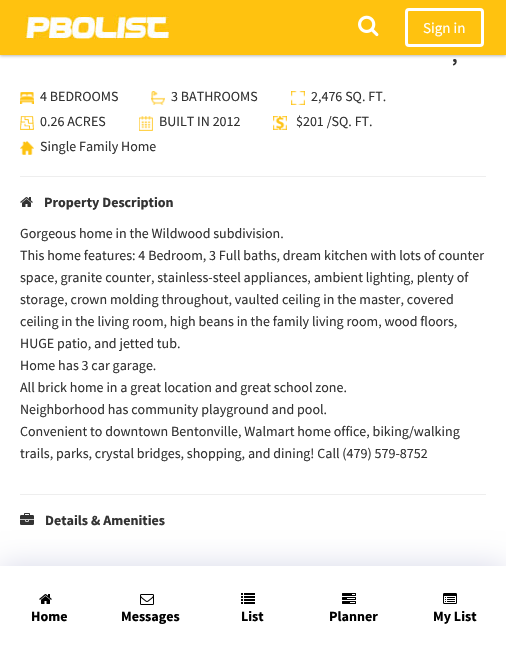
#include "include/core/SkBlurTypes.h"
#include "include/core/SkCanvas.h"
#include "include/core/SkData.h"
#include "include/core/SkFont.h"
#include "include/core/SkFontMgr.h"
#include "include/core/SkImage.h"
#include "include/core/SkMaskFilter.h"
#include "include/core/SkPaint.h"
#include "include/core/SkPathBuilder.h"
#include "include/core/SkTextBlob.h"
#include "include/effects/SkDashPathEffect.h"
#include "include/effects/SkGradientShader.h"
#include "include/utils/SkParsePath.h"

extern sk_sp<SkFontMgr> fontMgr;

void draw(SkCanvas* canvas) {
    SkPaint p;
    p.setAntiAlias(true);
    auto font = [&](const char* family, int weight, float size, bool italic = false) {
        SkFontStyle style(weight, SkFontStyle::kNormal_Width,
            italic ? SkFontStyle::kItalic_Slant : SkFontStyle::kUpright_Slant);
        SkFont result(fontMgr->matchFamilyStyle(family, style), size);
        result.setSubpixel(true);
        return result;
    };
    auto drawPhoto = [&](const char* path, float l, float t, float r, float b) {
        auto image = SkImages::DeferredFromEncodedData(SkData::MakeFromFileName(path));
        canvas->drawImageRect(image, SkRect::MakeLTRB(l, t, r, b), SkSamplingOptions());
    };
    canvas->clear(0xFFFFFFFF);
    p.setColor(0x59323232);
    p.setMaskFilter(SkMaskFilter::MakeBlur(kNormal_SkBlurStyle, 1.5f));
    canvas->drawRect(SkRect::MakeLTRB(0, 1, 506, 56), p);
    p.setMaskFilter(nullptr);
    p.setColor(0xFFFFC20F);
    canvas->drawRect(SkRect::MakeLTRB(0, 0, 506, 55), p);
    drawPhoto("media/1.png", 25, 15, 169, 39);
    drawPhoto("media/2.png", 358, 15, 379, 37);
    p.setStyle(SkPaint::kStroke_Style);
    p.setStrokeWidth(3);
    p.setColor(0xFFFFFFFF);
    canvas->drawRoundRect(SkRect::MakeLTRB(406.5f, 9.5f, 482.5f, 45.5f), 2.5f, 2.5f, p);
    auto font1 = font("Source Sans Pro", 400, 15);
    p.setStyle(SkPaint::kFill_Style);
    canvas->drawString("Sign in", 423, 33, font1, p);
    auto font2 = font("Source Sans Pro", 700, 18);
    p.setColor(0xFF333333);
    canvas->drawString(",", 452, 62, font2, p);
    drawPhoto("media/3.png", 20, 92, 34, 104);
    auto font3 = font("Source Sans Pro", 400, 14);
    canvas->drawString("4 BEDROOMS", 40, 101, font3, p);
    drawPhoto("media/4.png", 151, 91, 165, 105);
    canvas->drawString("3 BATHROOMS", 171, 101, font3, p);
    drawPhoto("media/5.png", 291, 91, 305, 105);
    canvas->drawString("2,476 SQ. FT.", 311, 101, font3, p);
    drawPhoto("media/6.png", 20, 116, 34, 130);
    canvas->drawString("0.26 ACRES", 40, 126, font3, p);
    drawPhoto("media/7.png", 139, 116, 153, 131);
    canvas->drawString("BUILT IN 2012", 159, 126, font3, p);
    drawPhoto("media/8.png", 273, 116, 287, 130);
    canvas->drawString("$201 /SQ. FT.", 296, 126, font3, p);
    drawPhoto("media/9.png", 20, 141, 34, 155);
    canvas->drawString("Single Family Home", 40, 151, font3, p);
    p.setColor(0xFFEEEEEE);
    canvas->drawRect(SkRect::MakeLTRB(20, 176, 486, 177), p);
    drawPhoto("media/10.png", 20, 197, 33, 207);
    auto font4 = font("Source Sans Pro", 700, 14);
    p.setColor(0xFF333333);
    canvas->drawString("Property Description", 44, 207, font4, p);
    {
        const struct { const char* s; float x, y; } items[] = {
            {"Gorgeous home in the Wildwood subdivision.", 20, 238},
            {"This home features: 4 Bedroom, 3 Full baths, dream kitchen with lots of counter", 20, 260},
            {"space, granite counter, stainless-steel appliances, ambient lighting, plenty of", 20, 282},
            {"storage, crown molding throughout, vaulted ceiling in the master, covered", 20, 304},
            {"ceiling in the living room, high beans in the family living room, wood floors,", 20, 326},
            {"HUGE patio, and jetted tub.", 20, 348},
            {"Home has 3 car garage.", 20, 370},
            {"All brick home in a great location and great school zone.", 20, 392},
            {"Neighborhood has community playground and pool.", 20, 414},
            {"Convenient to downtown Bentonville, Walmart home office, biking/walking", 20, 436},
            {"trails, parks, crystal bridges, shopping, and dining! Call (479) 579-8752", 20, 458},
        };
        for (auto [s, x, y] : items) {
            canvas->drawString(s, x, y, font3, p);
        }
    }
    p.setColor(0xFFEEEEEE);
    canvas->drawRect(SkRect::MakeLTRB(20, 494, 486, 495), p);
    drawPhoto("media/11.png", 20, 513, 34, 525);
    p.setColor(0xFF333333);
    canvas->drawString("Details & Amenities", 45, 525, font4, p);
    p.setColor(0xFFD7D8E9);
    p.setMaskFilter(SkMaskFilter::MakeBlur(kNormal_SkBlurStyle, 15));
    canvas->drawRect(SkRect::MakeLTRB(0, 566, 506, 651), p);
    p.setMaskFilter(nullptr);
    p.setColor(0xFFFFFFFF);
    canvas->drawRect(SkRect::MakeLTRB(0, 566, 506, 651), p);
    drawPhoto("media/12.png", 39, 594, 52, 604);
    p.setColor(0xFF000000);
    canvas->drawString("Home", 31, 621, font4, p);
    drawPhoto("media/13.png", 140, 594, 154, 605);
    canvas->drawString("Messages", 121, 621, font4, p);
    drawPhoto("media/14.png", 241, 593, 255, 604);
    canvas->drawString("List", 241, 621, font4, p);
    drawPhoto("media/15.png", 342, 593, 356, 604);
    canvas->drawString("Planner", 329, 621, font4, p);
    drawPhoto("media/16.png", 443, 593, 457, 604);
    canvas->drawString("My List", 433, 621, font4, p);
}
